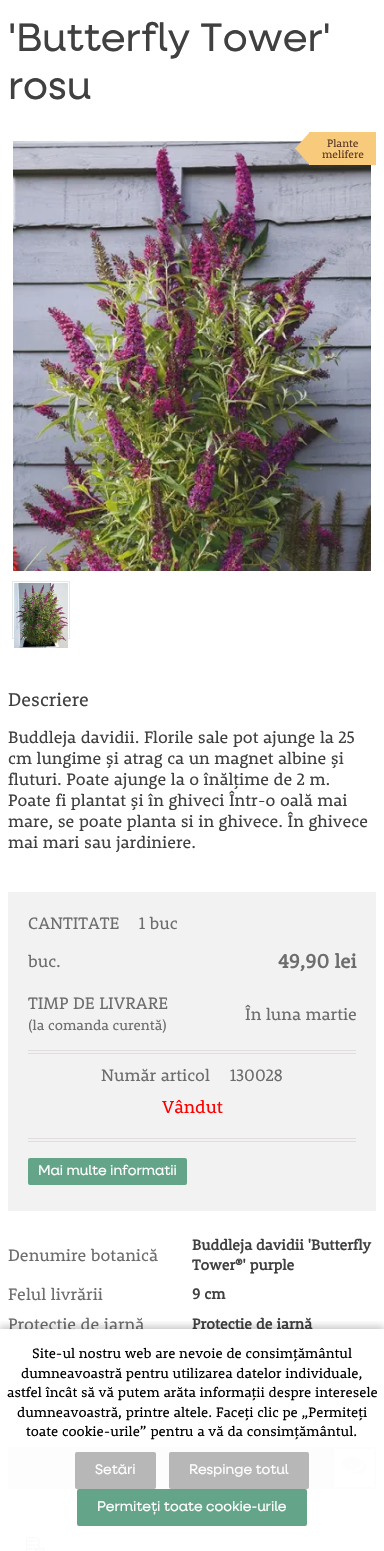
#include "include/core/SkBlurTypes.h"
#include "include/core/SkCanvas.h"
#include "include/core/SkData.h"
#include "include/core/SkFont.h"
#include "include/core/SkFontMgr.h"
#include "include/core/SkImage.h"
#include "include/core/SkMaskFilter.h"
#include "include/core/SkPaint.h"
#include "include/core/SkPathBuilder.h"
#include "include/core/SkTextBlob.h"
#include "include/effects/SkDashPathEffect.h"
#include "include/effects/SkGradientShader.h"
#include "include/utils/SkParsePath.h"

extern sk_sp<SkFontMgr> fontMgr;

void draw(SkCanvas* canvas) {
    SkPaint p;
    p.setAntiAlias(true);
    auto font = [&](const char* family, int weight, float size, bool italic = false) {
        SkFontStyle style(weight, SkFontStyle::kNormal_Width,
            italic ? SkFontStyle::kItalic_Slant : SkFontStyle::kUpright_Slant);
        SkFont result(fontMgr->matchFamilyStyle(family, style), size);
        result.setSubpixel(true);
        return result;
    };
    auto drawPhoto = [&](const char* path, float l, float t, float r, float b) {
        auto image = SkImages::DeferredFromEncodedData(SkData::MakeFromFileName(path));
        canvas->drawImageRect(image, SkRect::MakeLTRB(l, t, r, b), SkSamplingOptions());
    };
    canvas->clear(0xFFFFFFFF);
    auto font1 = font("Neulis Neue", 400, 40);
    p.setColor(0xFF404041);
    canvas->drawString("'Butterfly Tower'", 8, 51, font1, p);
    canvas->drawString("rosu", 8, 99, font1, p);
    drawPhoto("media/1.png", 13, 141, 371, 571);
    p.setColor(0xFFF8CA7C);
    canvas->drawRect(SkRect::MakeLTRB(309, 132, 376, 165), p);
    canvas->drawPath(SkPathBuilder().moveTo(295, 148.5f).lineTo(310, 132).lineTo(310, 165).close().detach(), p);
    auto font2 = font("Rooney", 400, 11);
    p.setColor(0xFF5D3B28);
    canvas->drawString("Plante", 327, 147, font2, p);
    canvas->drawString("melifere", 322, 158, font2, p);
    p.setStyle(SkPaint::kStroke_Style);
    p.setStrokeWidth(1);
    p.setColor(0xFFE8E8E8);
    canvas->drawRect(SkRect::MakeLTRB(12.5f, 581.5f, 69.5f, 638.5f), p);
    drawPhoto("media/2.png", 14, 583, 68, 648);
    auto font3 = font("Rooney", 400, 19);
    p.setStyle(SkPaint::kFill_Style);
    p.setColor(0xFF404041);
    canvas->drawString("Descriere", 8, 706, font3, p);
    auto font4 = font("Rooney", 400, 17);
    {
        const struct { const char* s; float x, y; } items[] = {
            {"Buddleja davidii. Florile sale pot ajunge la 25", 8, 743},
            {"cm lungime și atrag ca un magnet albine și", 8, 764},
            {"fluturi. Poate ajunge la o înălțime de 2 m.", 8, 785},
            {"Poate fi plantat și în ghiveci Într-o oală mai", 8, 806},
            {"mare, se poate planta si in ghivece. În ghivece", 8, 827},
            {"mai mari sau jardiniere.", 8, 848},
        };
        for (auto [s, x, y] : items) {
            canvas->drawString(s, x, y, font4, p);
        }
    }
    p.setColor(0xFFF2F2F2);
    canvas->drawRect(SkRect::MakeLTRB(8, 892, 376, 1211), p);
    p.setColor(0xFF6D6D6D);
    {
        const struct { const char* s; float x, y; } items[] = {
            {"CANTITATE", 28, 929},
            {"1 buc", 139, 929},
            {"buc.", 28, 967},
        };
        for (auto [s, x, y] : items) {
            canvas->drawString(s, x, y, font4, p);
        }
    }
    auto font5 = font("Rooney", 700, 20);
    canvas->drawString("49,90 lei", 278, 968, font5, p);
    canvas->drawString("TIMP DE LIVRARE", 28, 1009, font4, p);
    auto font6 = font("Rooney", 400, 14.25f);
    canvas->drawString("(la comanda curentă)", 28, 1030, font6, p);
    canvas->drawString("În luna martie", 245, 1020, font4, p);
    {
        const struct { float l, t, r, b; SkColor color; } items[] = {
            {28, 1050, 356, 1051, 0xFFE0DDDC},
            {28, 1053, 356, 1054, 0xFFE0DDDC},
            {28, 1138, 356, 1139, 0xFFE0DDDC},
            {28, 1141, 356, 1142, 0xFFE0DDDC},
        };
        for (auto [l, t, r, b, color] : items) {
            p.setColor(color);
            canvas->drawRect(SkRect::MakeLTRB(l, t, r, b), p);
        }
    }
    p.setColor(0xFF6D6D6D);
    canvas->drawString("Număr articol", 101, 1081, font4, p);
    canvas->drawString("130028", 230, 1081, font4, p);
    auto font7 = font("Rooney", 400, 18);
    p.setColor(0xFFFF0000);
    canvas->drawString("Vândut", 162, 1113, font7, p);
    p.setColor(0xFF64A58A);
    canvas->drawRoundRect(SkRect::MakeLTRB(28, 1158, 187, 1185), 2, 2, p);
    auto font8 = font("Neulis Neue", 400, 14);
    p.setColor(0xFFFFFFFF);
    canvas->drawString("Mai multe informatii", 38, 1175, font8, p);
    p.setColor(0xFF6D6D6D);
    canvas->drawString("Denumire botanică", 8, 1261, font4, p);
    auto font9 = font("Rooney", 700, 15);
    p.setColor(0xFF404041);
    canvas->drawString("Buddleja davidii 'Butterfly", 192, 1250, font9, p);
    canvas->drawString("Tower®' purple", 192, 1270, font9, p);
    p.setColor(0xFF6D6D6D);
    canvas->drawString("Felul livrării", 8, 1300, font4, p);
    p.setColor(0xFF404041);
    canvas->drawString("9 cm", 192, 1299, font9, p);
    p.setColor(0xFF6D6D6D);
    canvas->drawString("Protectie de iarnă", 8, 1330, font4, p);
    p.setColor(0xFF404041);
    canvas->drawString("Protectie de iarnă", 192, 1329, font9, p);
    p.setColor(0xFFCFDDCF);
    canvas->drawRoundRect(SkRect::MakeLTRB(8, 1447, 376, 1489), 2, 2, p);
    p.setColor(0xFFFFFFFF);
    canvas->drawRect(SkRect::MakeLTRB(334, 1449, 374, 1487), p);
    drawPhoto("media/3.png", 342, 1456, 367, 1476);
    p.setColor(0xFFF4F4F4);
    canvas->drawRect(SkRect::MakeLTRB(8, 1509, 376, 1551), p);
    drawPhoto("media/4.png", 26, 1537, 45, 1551);
    canvas->save();
    canvas->clipRect(SkRect::MakeLTRB(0, 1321, 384, 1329));
    p.setColor(0x40000000);
    p.setMaskFilter(SkMaskFilter::MakeBlur(kNormal_SkBlurStyle, 4));
    canvas->drawRect(SkRect::MakeLTRB(0, 1327, 384, 1549), p);
    p.setMaskFilter(nullptr);
    canvas->restore();
    p.setColor(0xF0FFFFFF);
    canvas->drawRect(SkRect::MakeLTRB(8, 1329, 376, 1551), p);
    auto font10 = font("Rooney", 400, 14);
    p.setColor(0xFF000000);
    {
        const struct { const char* s; float x, y; } items[] = {
            {"Site-ul nostru web are nevoie de consimțământul", 32, 1358},
            {"dumneavoastră pentru utilizarea datelor individuale,", 21, 1378},
            {"astfel încât să vă putem arăta informații despre interesele", 7, 1397},
            {"dumneavoastră, printre altele. Faceți clic pe „Permiteți", 17, 1417},
            {"toate cookie-urile” pentru a vă da consimțământul.", 26, 1436},
        };
        for (auto [s, x, y] : items) {
            canvas->drawString(s, x, y, font10, p);
        }
    }
    p.setColor(0xFFB7B7B7);
    canvas->drawRoundRect(SkRect::MakeLTRB(75, 1452, 156, 1489), 2, 2, p);
    p.setColor(0xFFFFFFFF);
    canvas->drawString("Setări", 95, 1474, font8, p);
    p.setColor(0xFFB7B7B7);
    canvas->drawRoundRect(SkRect::MakeLTRB(169, 1452, 309, 1489), 2, 2, p);
    p.setColor(0xFFFFFFFF);
    canvas->drawString("Respinge totul", 189, 1474, font8, p);
    p.setColor(0xFF64A58A);
    canvas->drawRoundRect(SkRect::MakeLTRB(77, 1489, 307, 1526), 2, 2, p);
    p.setColor(0xFFFFFFFF);
    canvas->drawString("Permiteți toate cookie-urile", 97, 1511, font8, p);
}
